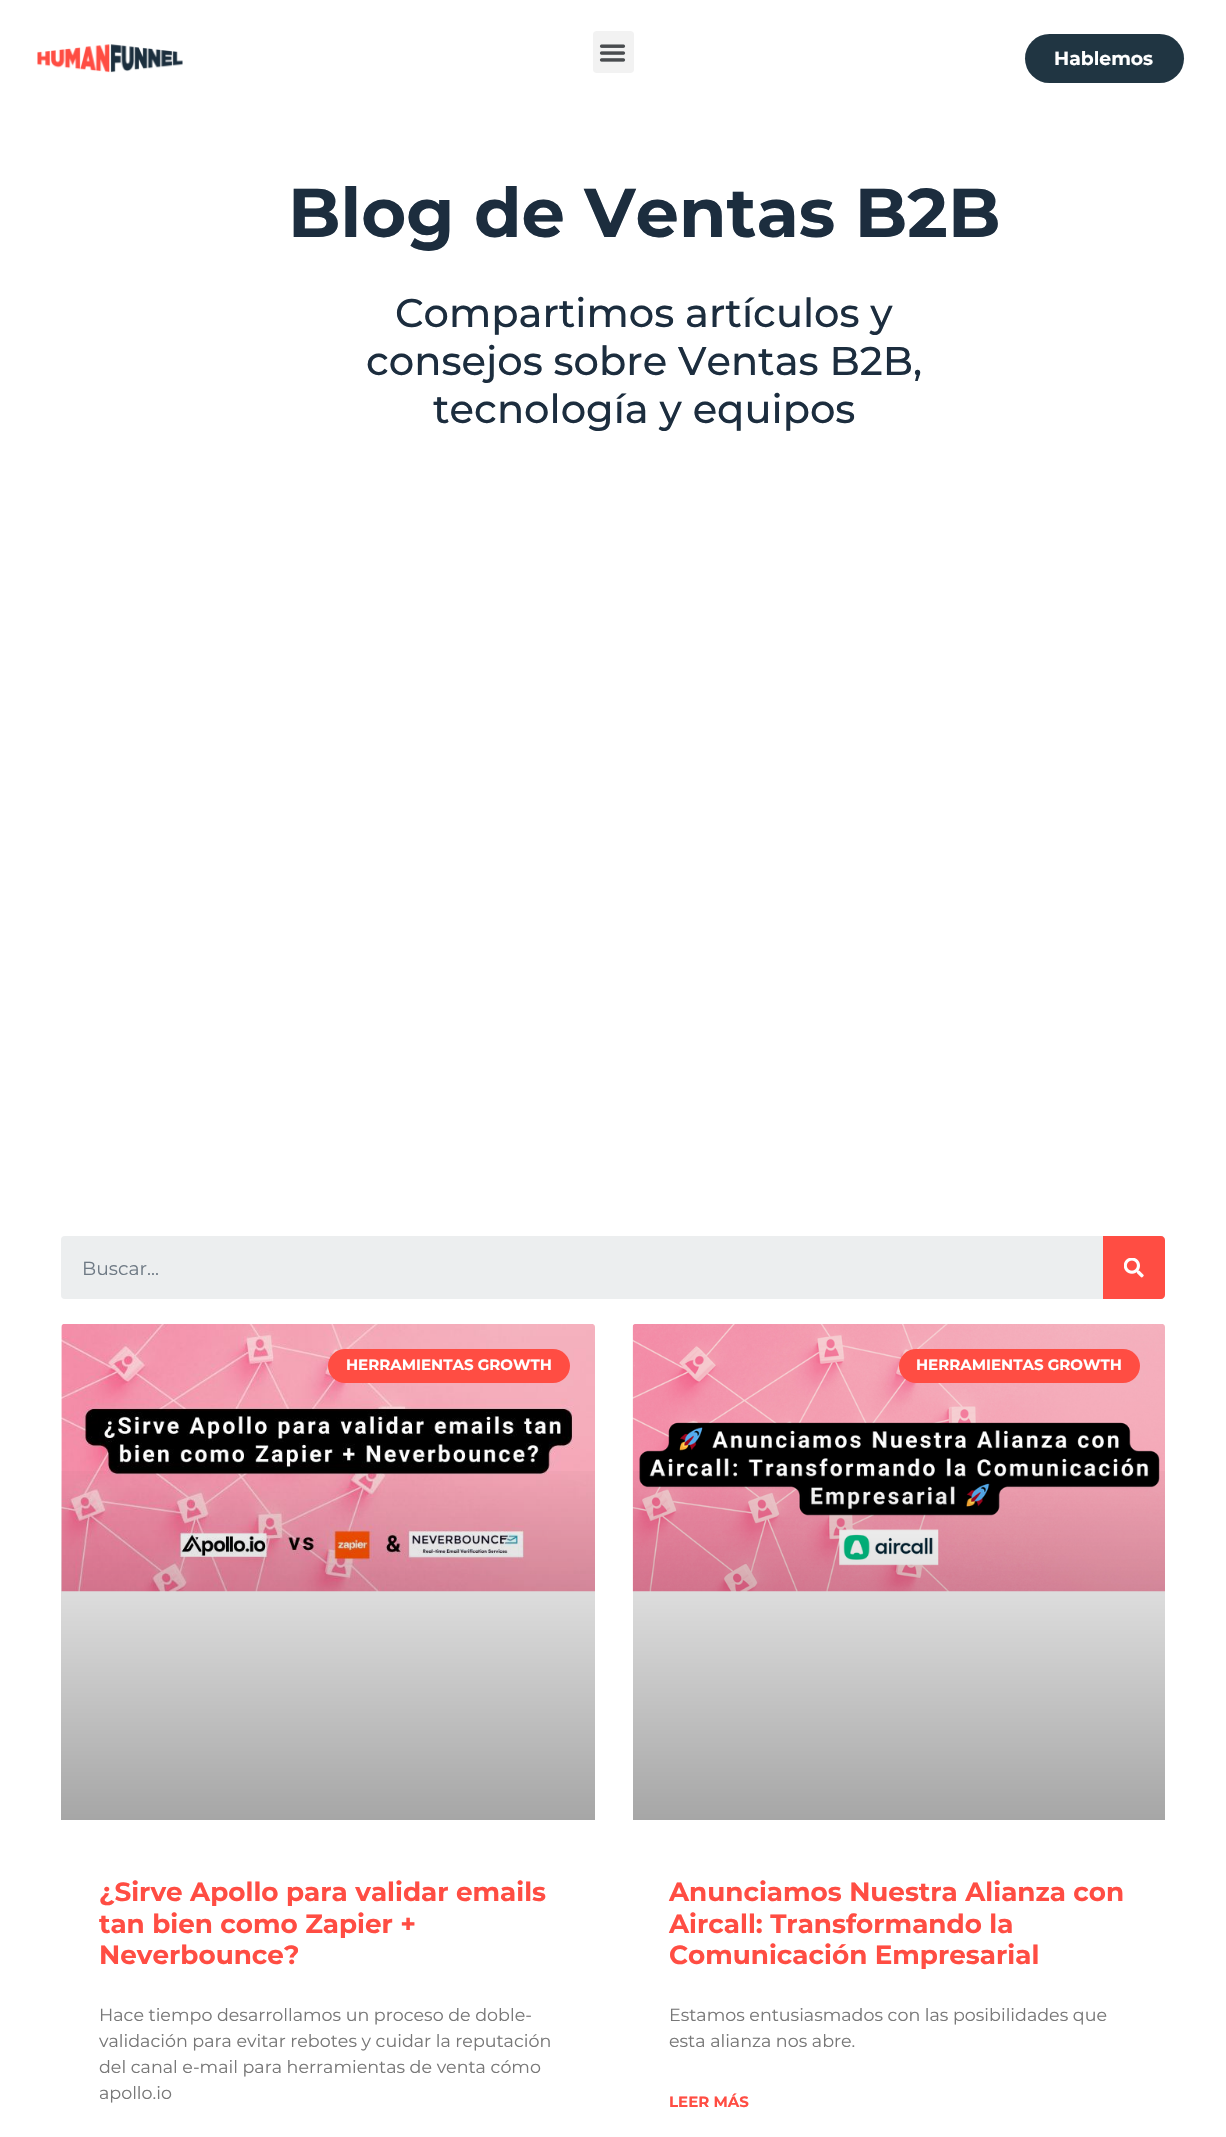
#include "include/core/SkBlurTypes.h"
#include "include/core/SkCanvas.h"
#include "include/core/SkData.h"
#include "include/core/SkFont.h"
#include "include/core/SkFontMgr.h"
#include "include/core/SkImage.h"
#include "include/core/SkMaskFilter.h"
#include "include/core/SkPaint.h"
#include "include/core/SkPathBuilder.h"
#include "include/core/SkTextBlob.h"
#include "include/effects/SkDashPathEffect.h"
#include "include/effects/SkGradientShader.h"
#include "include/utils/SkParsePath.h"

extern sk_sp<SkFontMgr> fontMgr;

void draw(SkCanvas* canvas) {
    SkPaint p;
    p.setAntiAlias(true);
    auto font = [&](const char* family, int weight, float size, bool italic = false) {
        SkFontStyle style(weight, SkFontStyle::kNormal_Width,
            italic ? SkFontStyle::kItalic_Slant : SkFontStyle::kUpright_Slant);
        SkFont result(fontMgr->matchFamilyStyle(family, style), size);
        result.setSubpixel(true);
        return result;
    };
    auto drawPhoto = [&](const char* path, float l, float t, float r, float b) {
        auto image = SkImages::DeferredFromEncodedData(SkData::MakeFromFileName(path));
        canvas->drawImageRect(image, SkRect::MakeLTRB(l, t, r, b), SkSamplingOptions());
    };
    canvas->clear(0xFFFFFFFF);
    drawPhoto("media/1.png", 37, 44, 183, 73);
    p.setColor(0xFFF2F2F2);
    canvas->drawRoundRect(SkRect::MakeLTRB(593, 31, 634, 73), 4, 4, p);
    drawPhoto("media/2.png", 599, 44, 626, 62);
    p.setColor(0xFF203542);
    canvas->drawRoundRect(SkRect::MakeLTRB(1025, 34, 1184, 83), 24.5f, 24.5f, p);
    auto font1 = font("Montserrat", 700, 18.75f);
    p.setColor(0xFFFFFFFF);
    canvas->drawString("Hablemos", 1054, 65, font1, p);
    auto font2 = font("Montserrat", 700, 68.75f);
    p.setColor(0xFF1C2D3E);
    canvas->drawString("Blog de Ventas B2B", 288, 237, font2, p);
    auto font3 = font("Montserrat", 500, 40);
    {
        const struct { const char* s; float x, y; } items[] = {
            {"Compartimos artículos y", 395, 327},
            {"consejos sobre Ventas B2B,", 366, 375},
            {"tecnología y equipos", 433, 423},
        };
        for (auto [s, x, y] : items) {
            canvas->drawString(s, x, y, font3, p);
        }
    }
    p.setColor(0xFFECEEEF);
    canvas->drawRoundRect(SkRect::MakeLTRB(61, 1236, 1165, 1299), 4, 4, p);
    auto font4 = font("Montserrat", 400, 18.75f);
    p.setColor(0xFF6F7A85);
    canvas->drawString("Buscar...", 82, 1275, font4, p);
    p.setColor(0xFFFF4D43);
    canvas->drawPath(SkPathBuilder().moveTo(1103, 1236).lineTo(1161, 1236).cubicTo(1163, 1236, 1165, 1238, 1165, 1240).lineTo(1165, 1295).cubicTo(1165, 1297, 1163, 1299, 1161, 1299).lineTo(1103, 1299).close().detach(), p);
    drawPhoto("media/3.png", 1124, 1258, 1144, 1278);
    drawPhoto("media/4.png", 61, 1324, 595, 1592);
    {
        const SkColor colors[] = {0x59000000, 0x00000000};
        const float stops[] = {0, 0.75f};
        const SkPoint ends[] = {{328, 1820}, {328, 1324}};
        p.setShader(SkGradientShader::MakeLinear(ends, colors, stops, 2, SkTileMode::kClamp));
        p.setAlpha(255);
    }
    canvas->drawRect(SkRect::MakeLTRB(61, 1471, 595, 1820), p);
    p.setShader(nullptr);
    p.setColor(0xFFFF4D43);
    canvas->drawRoundRect(SkRect::MakeLTRB(328, 1349, 570, 1383), 17, 17, p);
    auto font5 = font("Montserrat", 700, 15);
    p.setColor(0xFFFFFFFF);
    canvas->drawString("HERRAMIENTAS GROWTH", 346, 1370, font5, p);
    auto font6 = font("Montserrat", 700, 26.25f);
    p.setColor(0xFFFF4D43);
    {
        const struct { const char* s; float x, y; } items[] = {
            {"¿Sirve Apollo para validar emails", 99, 1901},
            {"tan bien como Zapier +", 99, 1933},
            {"Neverbounce?", 99, 1964},
        };
        for (auto [s, x, y] : items) {
            canvas->drawString(s, x, y, font6, p);
        }
    }
    auto font7 = font("Montserrat", 400, 17.5f);
    p.setColor(0xFF777777);
    {
        const struct { const char* s; float x, y; } items[] = {
            {"Hace tiempo desarrollamos un proceso de doble-", 99, 2021},
            {"validación para evitar rebotes y cuidar la reputación", 99, 2047},
            {"del canal e-mail para herramientas de venta cómo", 99, 2073},
            {"apollo.io", 99, 2099},
        };
        for (auto [s, x, y] : items) {
            canvas->drawString(s, x, y, font7, p);
        }
    }
    drawPhoto("media/5.png", 632, 1324, 1165, 1592);
    {
        const SkColor colors[] = {0x59000000, 0x00000000};
        const float stops[] = {0, 0.75f};
        const SkPoint ends[] = {{899, 1820}, {899, 1324}};
        p.setShader(SkGradientShader::MakeLinear(ends, colors, stops, 2, SkTileMode::kClamp));
        p.setAlpha(255);
    }
    canvas->drawRect(SkRect::MakeLTRB(633, 1471, 1165, 1820), p);
    p.setShader(nullptr);
    p.setColor(0xFFFF4D43);
    canvas->drawRoundRect(SkRect::MakeLTRB(899, 1349, 1140, 1383), 17, 17, p);
    p.setColor(0xFFFFFFFF);
    canvas->drawString("HERRAMIENTAS GROWTH", 916, 1370, font5, p);
    p.setColor(0xFFFF4D43);
    {
        const struct { const char* s; float x, y; } items[] = {
            {"Anunciamos Nuestra Alianza con", 669, 1901},
            {"Aircall: Transformando la", 669, 1933},
            {"Comunicación Empresarial", 669, 1964},
        };
        for (auto [s, x, y] : items) {
            canvas->drawString(s, x, y, font6, p);
        }
    }
    p.setColor(0xFF777777);
    canvas->drawString("Estamos entusiasmados con las posibilidades que", 669, 2021, font7, p);
    canvas->drawString("esta alianza nos abre.", 669, 2047, font7, p);
    p.setColor(0xFFFF4D43);
    canvas->drawString("LEER MÁS", 669, 2107, font5, p);
}
